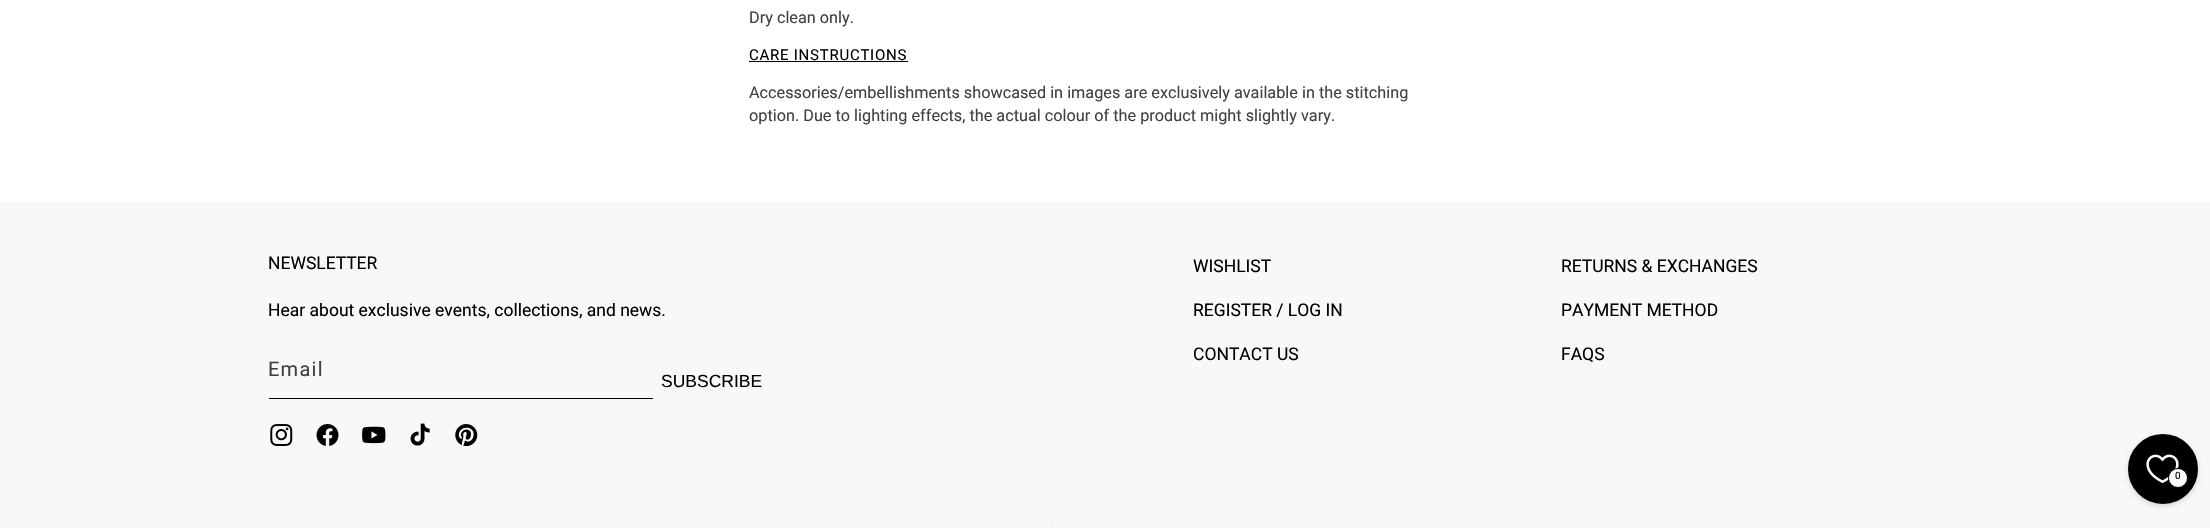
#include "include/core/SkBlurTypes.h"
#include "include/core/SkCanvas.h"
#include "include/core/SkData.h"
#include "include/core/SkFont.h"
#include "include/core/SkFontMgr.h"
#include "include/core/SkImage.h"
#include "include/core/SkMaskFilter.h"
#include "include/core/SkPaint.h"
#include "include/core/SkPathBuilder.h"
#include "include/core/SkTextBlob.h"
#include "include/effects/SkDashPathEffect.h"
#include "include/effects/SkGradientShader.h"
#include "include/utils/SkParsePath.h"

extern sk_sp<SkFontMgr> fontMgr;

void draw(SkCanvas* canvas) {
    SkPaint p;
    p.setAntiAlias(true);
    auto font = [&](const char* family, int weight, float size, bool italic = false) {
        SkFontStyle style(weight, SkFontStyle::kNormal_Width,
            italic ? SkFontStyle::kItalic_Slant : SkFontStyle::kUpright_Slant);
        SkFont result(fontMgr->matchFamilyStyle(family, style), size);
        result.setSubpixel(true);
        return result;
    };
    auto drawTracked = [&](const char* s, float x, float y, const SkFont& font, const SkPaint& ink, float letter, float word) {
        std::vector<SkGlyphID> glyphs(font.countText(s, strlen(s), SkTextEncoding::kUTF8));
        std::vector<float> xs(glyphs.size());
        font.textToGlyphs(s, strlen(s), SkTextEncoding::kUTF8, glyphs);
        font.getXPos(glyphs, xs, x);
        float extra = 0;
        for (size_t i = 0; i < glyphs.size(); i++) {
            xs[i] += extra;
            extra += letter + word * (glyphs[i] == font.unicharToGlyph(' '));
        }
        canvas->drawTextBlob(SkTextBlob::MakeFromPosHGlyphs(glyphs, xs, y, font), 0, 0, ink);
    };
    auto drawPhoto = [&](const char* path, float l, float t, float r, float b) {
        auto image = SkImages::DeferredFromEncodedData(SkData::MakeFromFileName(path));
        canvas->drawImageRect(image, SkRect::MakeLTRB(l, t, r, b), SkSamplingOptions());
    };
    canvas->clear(0xFFFFFFFF);
    auto font1 = font("Roboto", 400, 16.25f);
    p.setColor(0xFF404040);
    canvas->drawString("Dry clean only.", 749, 23, font1, p);
    auto font2 = font("Roboto", 400, 15);
    p.setColor(0xFF000000);
    drawTracked("CARE INSTRUCTIONS", 749, 60, font2, p, 0.75f, 0);
    canvas->drawRect(SkRect::MakeLTRB(749, 61, 908, 62), p);
    p.setColor(0xFF404040);
    canvas->drawString("Accessories/embellishments showcased in images are exclusively available in the stitching", 749, 98, font1, p);
    canvas->drawString("option. Due to lighting effects, the actual colour of the product might slightly vary.", 749, 121, font1, p);
    p.setColor(0xFFF8F8F8);
    canvas->drawRect(SkRect::MakeLTRB(0, 201, 2210, 528), p);
    auto font3 = font("Roboto", 400, 17.5f);
    p.setColor(0xFF000000);
    canvas->drawString("NEWSLETTER", 268, 269, font3, p);
    canvas->drawString("Hear about exclusive events, collections, and news.", 268, 316, font3, p);
    auto font4 = font("Roboto", 400, 20);
    p.setColor(0xFF404040);
    drawTracked("Email", 268, 376, font4, p, 1.25f, 0);
    auto font5 = font("Liberation Sans", 400, 17.5f);
    p.setColor(0xFF000000);
    canvas->drawString("SUBSCRIBE", 661, 387, font5, p);
    canvas->drawRect(SkRect::MakeLTRB(269, 398, 653, 399), p);
    drawPhoto("media/1.png", 270, 424, 293, 446);
    drawPhoto("media/2.png", 316, 424, 339, 446);
    drawPhoto("media/3.png", 362, 426, 386, 444);
    drawPhoto("media/4.png", 410, 423, 430, 446);
    drawPhoto("media/5.png", 455, 424, 478, 447);
    {
        const struct { const char* s; float x, y; } items[] = {
            {"WISHLIST", 1193, 272},
            {"REGISTER / LOG IN", 1193, 316},
            {"CONTACT US", 1193, 360},
            {"RETURNS & EXCHANGES", 1561, 272},
            {"PAYMENT METHOD", 1561, 316},
            {"FAQS", 1561, 360},
        };
        for (auto [s, x, y] : items) {
            canvas->drawString(s, x, y, font3, p);
        }
    }
    drawPhoto("media/6.png", 1049, 525, 1067, 528);
    p.setColor(0xFFF8F3F1);
    canvas->drawRect(SkRect::MakeLTRB(1104, 527, 1106, 528), p);
    p.setColor(0x26000000);
    p.setMaskFilter(SkMaskFilter::MakeBlur(kNormal_SkBlurStyle, 2.5f));
    canvas->drawRoundRect(SkRect::MakeLTRB(2128, 436, 2198, 506), 35, 35, p);
    p.setMaskFilter(nullptr);
    p.setColor(0xFF000000);
    canvas->drawCircle(2163, 469, 33.5f, p);
    p.setStyle(SkPaint::kStroke_Style);
    p.setStrokeWidth(3);
    canvas->drawCircle(2163, 469, 33.5f, p);
    drawPhoto("media/7.png", 2146, 454, 2179, 483);
    p.setStyle(SkPaint::kFill_Style);
    p.setColor(0xFFFFFFFF);
    canvas->drawCircle(2178, 478, 9.5f, p);
    p.setStyle(SkPaint::kStroke_Style);
    p.setStrokeWidth(1);
    p.setColor(0xFF000000);
    canvas->drawCircle(2178, 478, 9.5f, p);
    auto font6 = font("Roboto", 400, 10);
    p.setStyle(SkPaint::kFill_Style);
    canvas->drawString("0", 2175, 479, font6, p);
}
